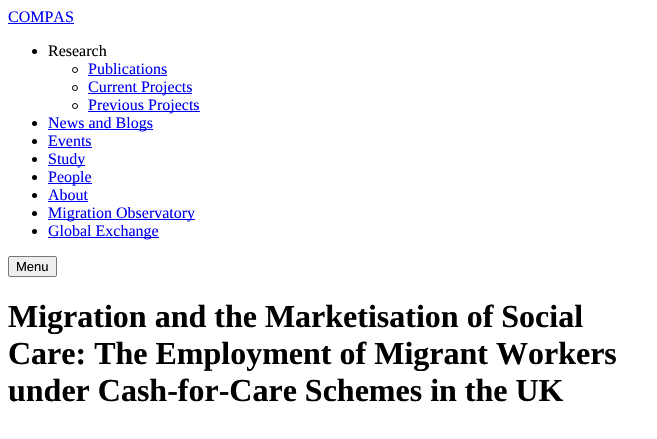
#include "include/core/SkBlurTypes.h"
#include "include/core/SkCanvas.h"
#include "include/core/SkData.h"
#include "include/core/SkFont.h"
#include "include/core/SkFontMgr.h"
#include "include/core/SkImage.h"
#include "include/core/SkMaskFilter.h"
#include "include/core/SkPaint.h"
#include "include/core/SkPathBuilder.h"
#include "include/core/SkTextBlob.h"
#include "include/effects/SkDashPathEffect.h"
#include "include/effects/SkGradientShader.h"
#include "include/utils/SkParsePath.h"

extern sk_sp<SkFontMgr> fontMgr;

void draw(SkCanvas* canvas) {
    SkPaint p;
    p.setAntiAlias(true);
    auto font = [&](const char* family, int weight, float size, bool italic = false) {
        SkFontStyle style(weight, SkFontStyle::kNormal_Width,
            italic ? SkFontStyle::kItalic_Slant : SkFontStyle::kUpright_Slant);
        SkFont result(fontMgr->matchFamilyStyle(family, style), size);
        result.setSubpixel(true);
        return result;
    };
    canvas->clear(0xFFFFFFFF);
    auto font1 = font("Liberation Serif", 400, 16);
    p.setColor(0xFF0000EE);
    canvas->drawString("COMPAS", 8, 22, font1, p);
    canvas->drawRect(SkRect::MakeLTRB(8, 23, 74, 24), p);
    p.setColor(0xFF000000);
    canvas->drawCircle(34.5f, 51.5f, 2.5f, p);
    canvas->drawString("Research", 48, 56, font1, p);
    p.setStyle(SkPaint::kStroke_Style);
    p.setStrokeWidth(1);
    canvas->drawCircle(75, 70, 2.5f, p);
    p.setStyle(SkPaint::kFill_Style);
    p.setColor(0xFF0000EE);
    canvas->drawString("Publications", 88, 74, font1, p);
    canvas->drawRect(SkRect::MakeLTRB(88, 75, 167, 76), p);
    p.setStyle(SkPaint::kStroke_Style);
    p.setColor(0xFF000000);
    canvas->drawCircle(75, 88, 2.5f, p);
    p.setStyle(SkPaint::kFill_Style);
    p.setColor(0xFF0000EE);
    canvas->drawRect(SkRect::MakeLTRB(88, 93, 192, 94), p);
    canvas->drawString("Current Projects", 88, 92, font1, p);
    p.setStyle(SkPaint::kStroke_Style);
    p.setColor(0xFF000000);
    canvas->drawCircle(75, 106, 2.5f, p);
    p.setStyle(SkPaint::kFill_Style);
    p.setColor(0xFF0000EE);
    canvas->drawRect(SkRect::MakeLTRB(88, 111, 200, 112), p);
    canvas->drawString("Previous Projects", 88, 110, font1, p);
    p.setColor(0xFF000000);
    canvas->drawCircle(34.5f, 123.5f, 2.5f, p);
    p.setColor(0xFF0000EE);
    canvas->drawRect(SkRect::MakeLTRB(48, 129, 153, 130), p);
    canvas->drawString("News and Blogs", 48, 128, font1, p);
    p.setColor(0xFF000000);
    canvas->drawCircle(34.5f, 141.5f, 2.5f, p);
    p.setColor(0xFF0000EE);
    canvas->drawString("Events", 48, 146, font1, p);
    canvas->drawRect(SkRect::MakeLTRB(48, 147, 92, 148), p);
    p.setColor(0xFF000000);
    canvas->drawCircle(34.5f, 159.5f, 2.5f, p);
    p.setColor(0xFF0000EE);
    canvas->drawRect(SkRect::MakeLTRB(48, 165, 85, 166), p);
    canvas->drawString("Study", 48, 164, font1, p);
    p.setColor(0xFF000000);
    canvas->drawCircle(34.5f, 177.5f, 2.5f, p);
    p.setColor(0xFF0000EE);
    canvas->drawRect(SkRect::MakeLTRB(48, 183, 92, 184), p);
    canvas->drawString("People", 48, 182, font1, p);
    p.setColor(0xFF000000);
    canvas->drawCircle(34.5f, 195.5f, 2.5f, p);
    p.setColor(0xFF0000EE);
    canvas->drawString("About", 48, 200, font1, p);
    canvas->drawRect(SkRect::MakeLTRB(48, 201, 88, 202), p);
    p.setColor(0xFF000000);
    canvas->drawCircle(34.5f, 213.5f, 2.5f, p);
    p.setColor(0xFF0000EE);
    canvas->drawRect(SkRect::MakeLTRB(48, 219, 195, 220), p);
    canvas->drawString("Migration Observatory", 48, 218, font1, p);
    p.setColor(0xFF000000);
    canvas->drawCircle(34.5f, 231.5f, 2.5f, p);
    p.setColor(0xFF0000EE);
    canvas->drawRect(SkRect::MakeLTRB(48, 237, 159, 238), p);
    canvas->drawString("Global Exchange", 48, 236, font1, p);
    p.setColor(0xFFEFEFEF);
    canvas->drawRoundRect(SkRect::MakeLTRB(8.5f, 256.5f, 56.5f, 276.5f), 1.5f, 1.5f, p);
    p.setStyle(SkPaint::kStroke_Style);
    p.setColor(0xFF767676);
    canvas->drawRoundRect(SkRect::MakeLTRB(8.5f, 256.5f, 56.5f, 276.5f), 1.5f, 1.5f, p);
    auto font2 = font("Liberation Sans", 400, 13);
    p.setStyle(SkPaint::kFill_Style);
    p.setColor(0xFF000000);
    canvas->drawString("Menu", 16, 271, font2, p);
    auto font3 = font("Liberation Serif", 700, 32);
    {
        const struct { const char* s; float x, y; } items[] = {
            {"Migration and the Marketisation of Social", 8, 327},
            {"Care: The Employment of Migrant Workers", 8, 364},
            {"under Cash-for-Care Schemes in the UK", 8, 401},
        };
        for (auto [s, x, y] : items) {
            canvas->drawString(s, x, y, font3, p);
        }
    }
}
